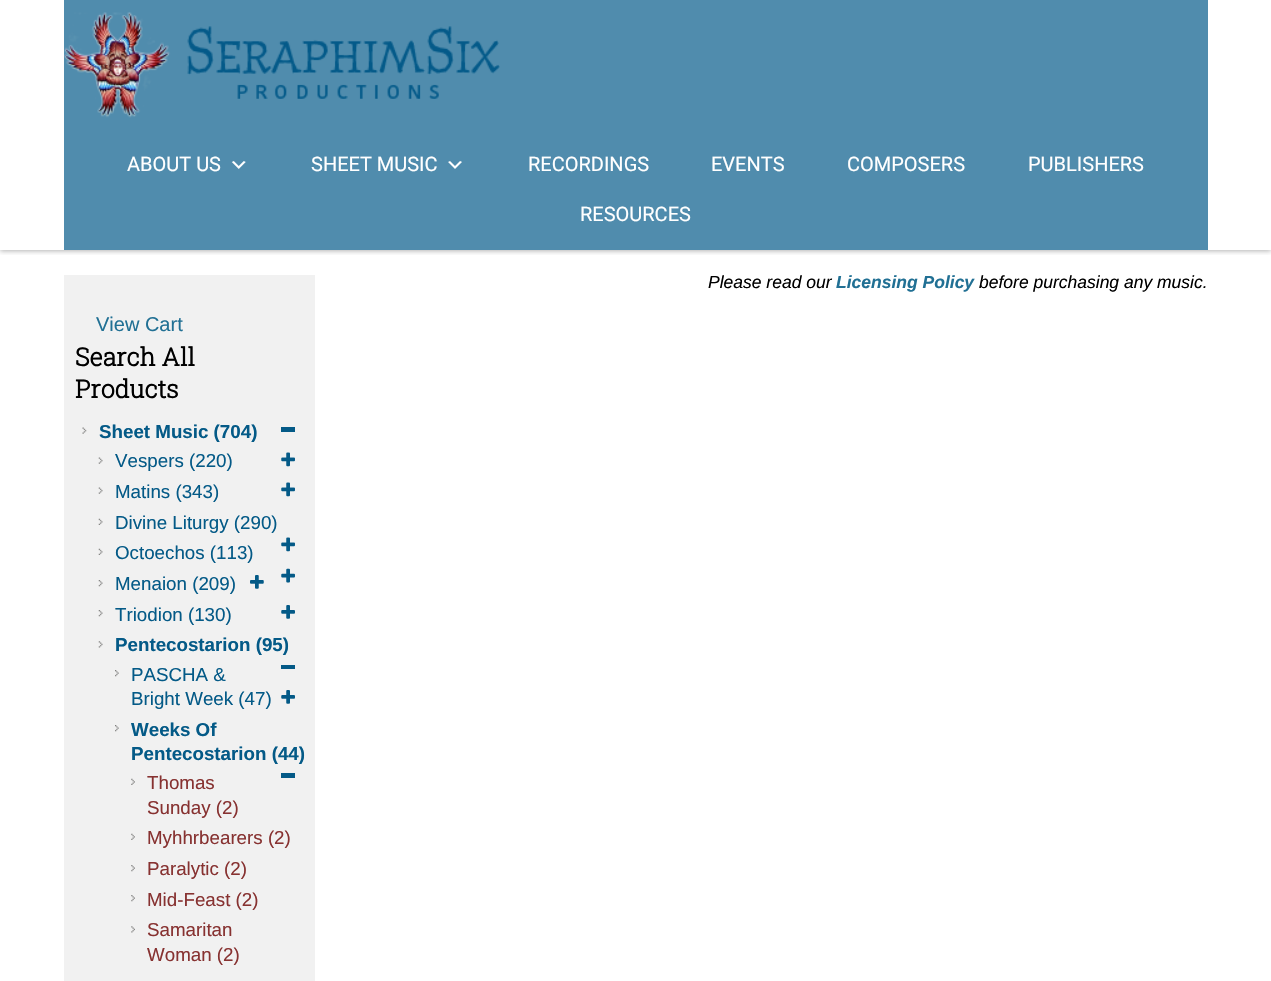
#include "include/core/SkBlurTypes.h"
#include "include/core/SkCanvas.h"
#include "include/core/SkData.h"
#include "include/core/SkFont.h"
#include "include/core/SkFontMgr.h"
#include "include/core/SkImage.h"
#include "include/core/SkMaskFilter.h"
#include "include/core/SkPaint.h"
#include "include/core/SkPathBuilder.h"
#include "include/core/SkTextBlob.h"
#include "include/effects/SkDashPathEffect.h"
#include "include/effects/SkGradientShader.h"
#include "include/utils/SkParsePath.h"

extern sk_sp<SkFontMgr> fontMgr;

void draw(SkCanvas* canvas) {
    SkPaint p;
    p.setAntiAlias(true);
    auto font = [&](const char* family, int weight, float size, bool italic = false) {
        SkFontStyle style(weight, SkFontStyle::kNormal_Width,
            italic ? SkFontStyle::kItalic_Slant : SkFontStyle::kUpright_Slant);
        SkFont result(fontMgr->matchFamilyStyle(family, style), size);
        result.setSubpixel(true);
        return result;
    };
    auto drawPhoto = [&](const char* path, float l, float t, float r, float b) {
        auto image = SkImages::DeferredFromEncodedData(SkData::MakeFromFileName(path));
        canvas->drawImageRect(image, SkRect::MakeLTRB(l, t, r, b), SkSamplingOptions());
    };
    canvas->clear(0xFFFFFFFF);
    canvas->save();
    canvas->clipRect(SkRect::MakeLTRB(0, 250, 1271, 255));
    p.setColor(0x4D000000);
    p.setMaskFilter(SkMaskFilter::MakeBlur(kNormal_SkBlurStyle, 2.5f));
    canvas->drawRect(SkRect::MakeLTRB(0, 1, 1271, 251), p);
    p.setMaskFilter(nullptr);
    canvas->restore();
    p.setColor(0xFF508CAD);
    canvas->drawRect(SkRect::MakeLTRB(64, 0, 1208, 250), p);
    drawPhoto("media/1.png", 64, 12, 500, 118);
    auto font1 = font("Roboto", 400, 20);
    p.setColor(0xFFFFFFFF);
    canvas->drawString("ABOUT US", 127, 171, font1, p);
    drawPhoto("media/2.png", 231, 161, 246, 169);
    canvas->drawString("SHEET MUSIC", 311, 171, font1, p);
    drawPhoto("media/3.png", 448, 161, 462, 169);
    {
        const struct { const char* s; float x, y; } items[] = {
            {"RECORDINGS", 528, 171},
            {"EVENTS", 711, 171},
            {"COMPOSERS", 847, 171},
            {"PUBLISHERS", 1028, 171},
            {"RESOURCES", 580, 221},
        };
        for (auto [s, x, y] : items) {
            canvas->drawString(s, x, y, font1, p);
        }
    }
    auto font2 = font("Liberation Sans", 400, 17.5f, true);
    p.setColor(0xFF000000);
    canvas->drawString("Please read our", 708, 288, font2, p);
    auto font3 = font("Liberation Sans", 700, 17.5f, true);
    p.setColor(0xFF217094);
    canvas->drawString("Licensing Policy", 836, 288, font3, p);
    p.setColor(0xFF000000);
    canvas->drawString("before purchasing any music.", 979, 288, font2, p);
    p.setColor(0xFFF1F1F1);
    canvas->drawRect(SkRect::MakeLTRB(64, 275, 315, 981), p);
    auto font4 = font("Liberation Sans", 400, 20);
    p.setColor(0xFF217094);
    canvas->drawString("View Cart", 96, 331, font4, p);
    auto font5 = font("Roboto Slab", 700, 25);
    p.setColor(0xFF000000);
    canvas->drawString("Search All", 75, 366, font5, p);
    canvas->drawString("Products", 75, 398, font5, p);
    drawPhoto("media/4.png", 82, 427, 87, 434);
    auto font6 = font("Liberation Sans", 700, 18.75f);
    p.setColor(0xFF045A87);
    canvas->drawString("Sheet Music (704)", 99, 438, font6, p);
    canvas->drawRect(SkRect::MakeLTRB(281, 427, 295, 432), p);
    drawPhoto("media/5.png", 98, 457, 103, 464);
    auto font7 = font("Liberation Sans", 400, 18.75f);
    canvas->drawString("Vespers (220)", 115, 467, font7, p);
    drawPhoto("media/6.png", 281, 452, 295, 467);
    drawPhoto("media/5.png", 98, 487, 103, 494);
    canvas->drawString("Matins (343)", 115, 498, font7, p);
    drawPhoto("media/6.png", 281, 482, 295, 497);
    drawPhoto("media/7.png", 98, 518, 103, 525);
    canvas->drawString("Divine Liturgy (290)", 115, 529, font7, p);
    drawPhoto("media/6.png", 281, 537, 295, 552);
    drawPhoto("media/7.png", 98, 548, 103, 555);
    canvas->drawString("Octoechos (113)", 115, 559, font7, p);
    drawPhoto("media/8.png", 281, 568, 295, 583);
    drawPhoto("media/9.png", 98, 580, 103, 587);
    canvas->drawString("Menaion (209)", 115, 590, font7, p);
    drawPhoto("media/10.png", 250, 575, 264, 589);
    drawPhoto("media/9.png", 98, 610, 103, 617);
    canvas->drawString("Triodion (130)", 115, 621, font7, p);
    drawPhoto("media/11.png", 281, 605, 295, 619);
    drawPhoto("media/12.png", 98, 641, 103, 648);
    canvas->drawString("Pentecostarion (95)", 115, 651, font6, p);
    canvas->drawRect(SkRect::MakeLTRB(281, 665, 295, 669), p);
    drawPhoto("media/13.png", 115, 670, 119, 677);
    canvas->drawString("PASCHA &", 131, 681, font7, p);
    canvas->drawString("Bright Week (47)", 131, 705, font7, p);
    drawPhoto("media/11.png", 281, 690, 295, 704);
    drawPhoto("media/13.png", 115, 725, 119, 732);
    canvas->drawString("Weeks Of", 131, 736, font6, p);
    canvas->drawString("Pentecostarion (44)", 131, 760, font6, p);
    canvas->drawRect(SkRect::MakeLTRB(281, 773, 295, 778), p);
    drawPhoto("media/14.png", 131, 778, 135, 785);
    p.setColor(0xFF873231);
    canvas->drawString("Thomas", 147, 789, font7, p);
    canvas->drawString("Sunday (2)", 147, 814, font7, p);
    drawPhoto("media/15.png", 131, 833, 135, 840);
    canvas->drawString("Myhhrbearers (2)", 147, 844, font7, p);
    drawPhoto("media/16.png", 131, 865, 135, 872);
    canvas->drawString("Paralytic (2)", 147, 875, font7, p);
    drawPhoto("media/16.png", 131, 895, 135, 902);
    canvas->drawString("Mid-Feast (2)", 147, 906, font7, p);
    drawPhoto("media/17.png", 131, 926, 135, 933);
    canvas->drawString("Samaritan", 147, 936, font7, p);
    canvas->drawString("Woman (2)", 147, 961, font7, p);
}
